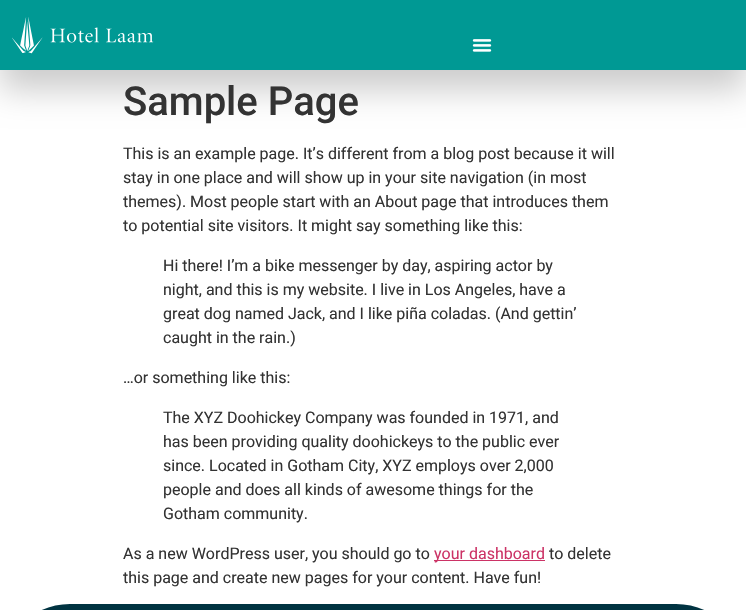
#include "include/core/SkBlurTypes.h"
#include "include/core/SkCanvas.h"
#include "include/core/SkData.h"
#include "include/core/SkFont.h"
#include "include/core/SkFontMgr.h"
#include "include/core/SkImage.h"
#include "include/core/SkMaskFilter.h"
#include "include/core/SkPaint.h"
#include "include/core/SkPathBuilder.h"
#include "include/core/SkTextBlob.h"
#include "include/effects/SkDashPathEffect.h"
#include "include/effects/SkGradientShader.h"
#include "include/utils/SkParsePath.h"

extern sk_sp<SkFontMgr> fontMgr;

void draw(SkCanvas* canvas) {
    SkPaint p;
    p.setAntiAlias(true);
    auto font = [&](const char* family, int weight, float size, bool italic = false) {
        SkFontStyle style(weight, SkFontStyle::kNormal_Width,
            italic ? SkFontStyle::kItalic_Slant : SkFontStyle::kUpright_Slant);
        SkFont result(fontMgr->matchFamilyStyle(family, style), size);
        result.setSubpixel(true);
        return result;
    };
    auto drawPhoto = [&](const char* path, float l, float t, float r, float b) {
        auto image = SkImages::DeferredFromEncodedData(SkData::MakeFromFileName(path));
        canvas->drawImageRect(image, SkRect::MakeLTRB(l, t, r, b), SkSamplingOptions());
    };
    canvas->clear(0xFFFFFFFF);
    p.setColor(0x33000000);
    p.setMaskFilter(SkMaskFilter::MakeBlur(kNormal_SkBlurStyle, 16.5f));
    canvas->drawRect(SkRect::MakeLTRB(0, 20, 746, 90), p);
    p.setMaskFilter(nullptr);
    p.setColor(0xFF009994);
    canvas->drawRect(SkRect::MakeLTRB(0, 0, 746, 70), p);
    drawPhoto("media/1.png", 12, 17, 154, 54);
    drawPhoto("media/2.png", 472, 39, 492, 52);
    auto font1 = font("Roboto", 500, 40);
    p.setColor(0xFF333333);
    canvas->drawString("Sample Page", 123, 115, font1, p);
    auto font2 = font("Roboto", 400, 16);
    {
        const struct { const char* s; float x, y; } items[] = {
            {"This is an example page. It’s different from a blog post because it will", 123, 159},
            {"stay in one place and will show up in your site navigation (in most", 123, 183},
            {"themes). Most people start with an About page that introduces them", 123, 207},
            {"to potential site visitors. It might say something like this:", 123, 231},
            {"Hi there! I’m a bike messenger by day, aspiring actor by", 163, 271},
            {"night, and this is my website. I live in Los Angeles, have a", 163, 295},
            {"great dog named Jack, and I like piña coladas. (And gettin’", 163, 319},
            {"caught in the rain.)", 163, 343},
            {"…or something like this:", 123, 383},
            {"The XYZ Doohickey Company was founded in 1971, and", 163, 423},
            {"has been providing quality doohickeys to the public ever", 163, 447},
            {"since. Located in Gotham City, XYZ employs over 2,000", 163, 471},
            {"people and does all kinds of awesome things for the", 163, 495},
            {"Gotham community.", 163, 519},
            {"As a new WordPress user, you should go to", 123, 559},
        };
        for (auto [s, x, y] : items) {
            canvas->drawString(s, x, y, font2, p);
        }
    }
    p.setColor(0xFFCC3366);
    canvas->drawRect(SkRect::MakeLTRB(434, 560, 545, 561), p);
    canvas->drawString("your dashboard", 434, 559, font2, p);
    p.setColor(0xFF333333);
    canvas->drawString("to delete", 549, 559, font2, p);
    canvas->drawString("this page and create new pages for your content. Have fun!", 123, 583, font2, p);
    p.setColor(0xFF003341);
    canvas->drawPath(SkPathBuilder().moveTo(70, 604).lineTo(676, 604).cubicTo(714.5f, 604, 746, 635.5f, 746, 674).lineTo(746, 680).lineTo(0, 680).lineTo(0, 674).cubicTo(0, 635.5f, 31.5f, 604, 70, 604).close().detach(), p);
}
